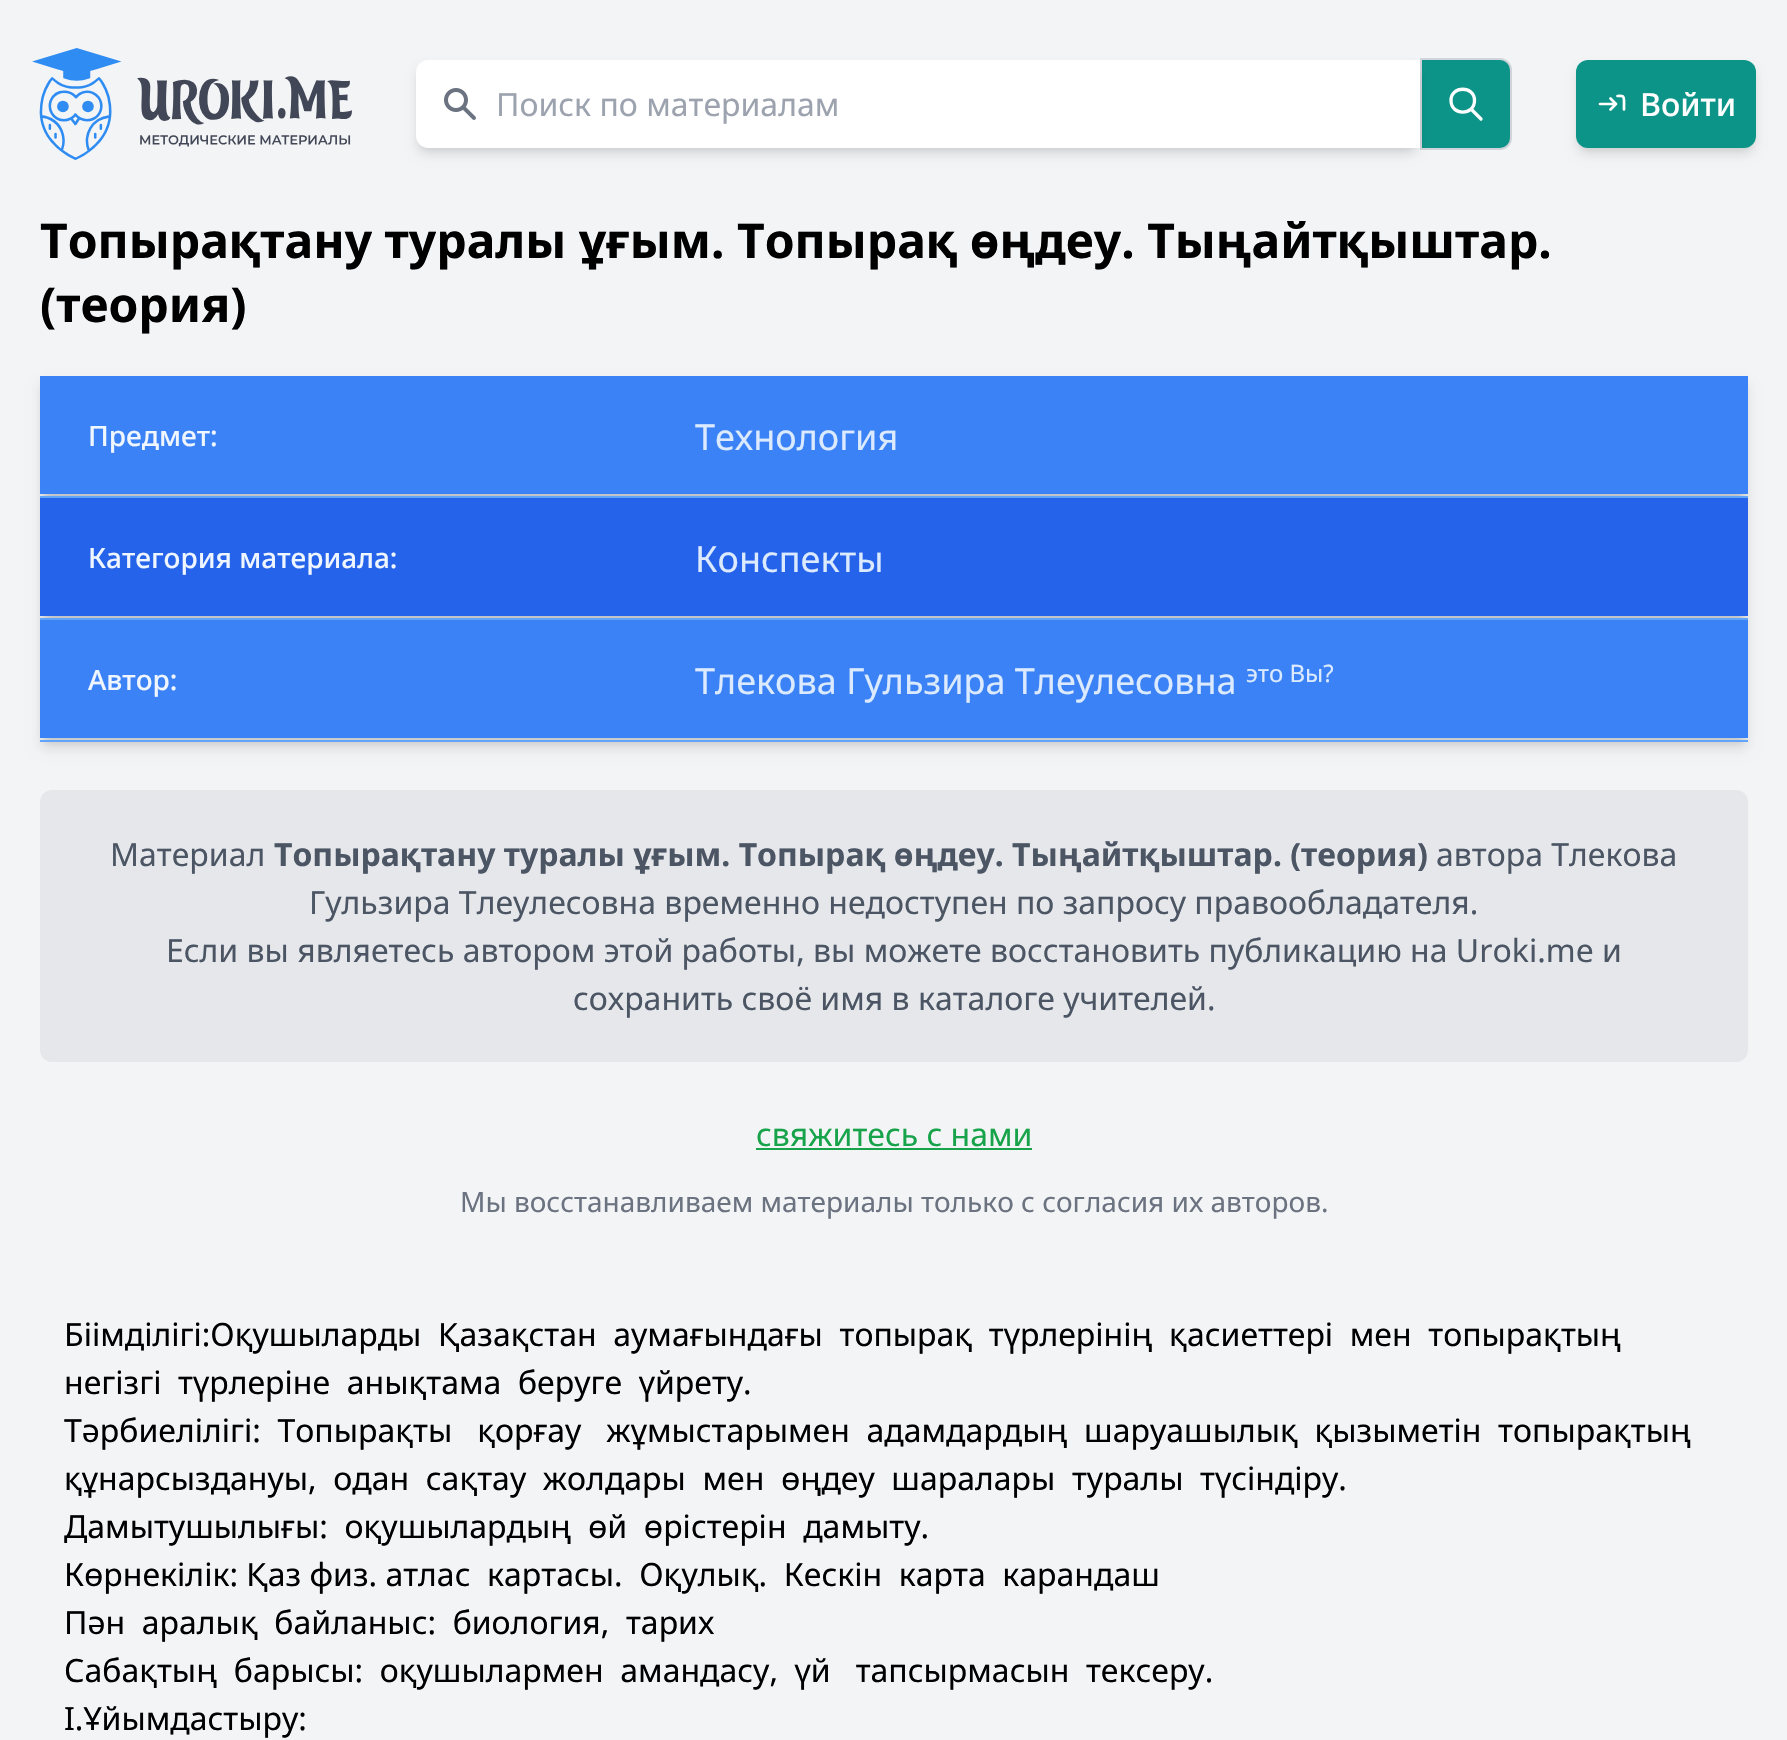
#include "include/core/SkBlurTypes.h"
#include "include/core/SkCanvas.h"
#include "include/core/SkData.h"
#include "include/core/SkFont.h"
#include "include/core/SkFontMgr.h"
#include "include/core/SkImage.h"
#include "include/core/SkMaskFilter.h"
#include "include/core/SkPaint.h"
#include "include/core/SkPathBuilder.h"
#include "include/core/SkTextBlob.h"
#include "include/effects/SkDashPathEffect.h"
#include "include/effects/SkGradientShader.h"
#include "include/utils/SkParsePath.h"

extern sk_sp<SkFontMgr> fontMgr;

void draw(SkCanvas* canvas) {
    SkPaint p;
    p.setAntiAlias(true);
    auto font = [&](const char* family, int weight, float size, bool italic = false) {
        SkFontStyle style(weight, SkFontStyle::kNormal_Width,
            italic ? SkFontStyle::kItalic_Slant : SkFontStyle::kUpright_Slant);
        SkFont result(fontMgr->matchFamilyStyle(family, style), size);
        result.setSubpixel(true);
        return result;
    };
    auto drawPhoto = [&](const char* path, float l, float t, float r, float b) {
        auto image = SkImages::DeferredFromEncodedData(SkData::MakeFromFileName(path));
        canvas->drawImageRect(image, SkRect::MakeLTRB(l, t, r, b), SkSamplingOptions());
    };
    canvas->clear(0xFFF3F4F6);
    drawPhoto("media/1.png", 32, 48, 352, 160);
    p.setColor(0xFF0D9488);
    canvas->drawPath(SkPathBuilder().moveTo(1421, 59).lineTo(1500, 59).cubicTo(1506, 59, 1511, 64, 1511, 70).lineTo(1511, 138).cubicTo(1511, 144, 1506, 149, 1500, 149).lineTo(1421, 149).close().detach(), p);
    p.setStyle(SkPaint::kStroke_Style);
    p.setStrokeWidth(2);
    p.setColor(0xFFD1D5DB);
    canvas->drawPath(SkPathBuilder().moveTo(1421, 59).lineTo(1500, 59).cubicTo(1506, 59, 1511, 64, 1511, 70).lineTo(1511, 138).cubicTo(1511, 144, 1506, 149, 1500, 149).lineTo(1421, 149).close().detach(), p);
    p.setStyle(SkPaint::kFill_Style);
    p.setColor(0x1A000000);
    p.setMaskFilter(SkMaskFilter::MakeBlur(kNormal_SkBlurStyle, 4));
    canvas->drawRoundRect(SkRect::MakeLTRB(420, 68, 1416, 148), 8, 8, p);
    p.setMaskFilter(nullptr);
    p.setMaskFilter(SkMaskFilter::MakeBlur(kNormal_SkBlurStyle, 6));
    canvas->drawRoundRect(SkRect::MakeLTRB(418, 70, 1418, 154), 10, 10, p);
    p.setMaskFilter(nullptr);
    p.setColor(0xFFFFFFFF);
    canvas->drawPath(SkPathBuilder().moveTo(428, 60).lineTo(1420, 60).lineTo(1420, 148).lineTo(428, 148).cubicTo(421.5f, 148, 416, 142.5f, 416, 136).lineTo(416, 72).cubicTo(416, 65.5f, 421.5f, 60, 428, 60).close().detach(), p);
    drawPhoto("media/2.png", 444, 88, 476, 120);
    auto font1 = font("Noto Sans", 400, 32);
    p.setColor(0xFF9CA3AF);
    canvas->drawString("Поиск по материалам", 496, 116, font1, p);
    p.setStyle(SkPaint::kStroke_Style);
    p.setStrokeWidth(3.3f);
    p.setStrokeCap(SkPaint::kRound_Cap);
    p.setStrokeJoin(SkPaint::kRound_Join);
    p.setColor(0xFFFFFFFF);
    canvas->drawPath(SkPathBuilder().moveTo(1481, 119).lineTo(1471, 109).moveTo(1474.5f, 100.5f).cubicTo(1474.5f, 116, 1451, 116, 1451, 100.5f).cubicTo(1451, 85.5f, 1474.5f, 85.5f, 1474.5f, 100.5f).close().detach(), p);
    p.setStyle(SkPaint::kFill_Style);
    p.setColor(0x1A000000);
    p.setMaskFilter(SkMaskFilter::MakeBlur(kNormal_SkBlurStyle, 4));
    canvas->drawRoundRect(SkRect::MakeLTRB(1580, 68, 1752, 148), 8, 8, p);
    p.setMaskFilter(nullptr);
    p.setMaskFilter(SkMaskFilter::MakeBlur(kNormal_SkBlurStyle, 6));
    canvas->drawRoundRect(SkRect::MakeLTRB(1578, 70, 1754, 154), 10, 10, p);
    p.setMaskFilter(nullptr);
    p.setColor(0xFF0D9488);
    canvas->drawRoundRect(SkRect::MakeLTRB(1576, 60, 1756, 148), 12, 12, p);
    p.setStyle(SkPaint::kStroke_Style);
    p.setStrokeWidth(2.7f);
    p.setColor(0xFFFFFFFF);
    canvas->drawPath(SkPathBuilder().moveTo(1616, 104).lineTo(1600, 104).moveTo(1616, 104).lineTo(1610.5f, 109.5f).moveTo(1616, 104).lineTo(1610.5f, 98.5f).moveTo(1624, 109.5f).lineTo(1624, 100.5f).cubicTo(1624, 95, 1622, 96, 1617.5f, 96).detach(), p);
    auto font2 = font("Noto Sans", 500, 32);
    p.setStyle(SkPaint::kFill_Style);
    canvas->drawString("Войти", 1640, 116, font2, p);
    auto font3 = font("Noto Sans", 700, 48);
    p.setColor(0xFF000000);
    canvas->drawString("Топырақтану туралы ұғым. Топырақ өңдеу. Тыңайтқыштар.", 40, 258, font3, p);
    canvas->drawString("(теория)", 40, 322, font3, p);
    p.setColor(0x1A000000);
    p.setMaskFilter(SkMaskFilter::MakeBlur(kNormal_SkBlurStyle, 4));
    canvas->drawRect(SkRect::MakeLTRB(44, 384, 1744, 742), p);
    p.setMaskFilter(nullptr);
    p.setMaskFilter(SkMaskFilter::MakeBlur(kNormal_SkBlurStyle, 6));
    canvas->drawRect(SkRect::MakeLTRB(42, 386, 1746, 748), p);
    p.setMaskFilter(nullptr);
    p.setColor(0xFF3B82F6);
    canvas->drawRect(SkRect::MakeLTRB(40, 376, 1748, 494), p);
    p.setColor(0xFF60A5FA);
    canvas->drawRect(SkRect::MakeLTRB(40, 496, 1748, 498), p);
    auto font4 = font("Noto Sans", 500, 28);
    p.setColor(0xFFEFF6FF);
    canvas->drawString("Предмет:", 88, 446, font4, p);
    auto font5 = font("Noto Sans", 400, 36);
    p.setColor(0xFFDBEAFE);
    canvas->drawString("Технология", 695, 450, font5, p);
    p.setColor(0xFF2563EB);
    canvas->drawRect(SkRect::MakeLTRB(40, 498, 1748, 616), p);
    p.setColor(0xFF60A5FA);
    canvas->drawRect(SkRect::MakeLTRB(40, 618, 1748, 620), p);
    p.setColor(0xFFEFF6FF);
    canvas->drawString("Категория материала:", 88, 568, font4, p);
    p.setColor(0xFFDBEAFE);
    canvas->drawString("Конспекты", 695, 572, font5, p);
    p.setColor(0xFF3B82F6);
    canvas->drawRect(SkRect::MakeLTRB(40, 620, 1748, 738), p);
    p.setColor(0xFF60A5FA);
    canvas->drawRect(SkRect::MakeLTRB(40, 740, 1748, 742), p);
    p.setColor(0xFFEFF6FF);
    canvas->drawString("Автор:", 88, 690, font4, p);
    p.setColor(0xFFDBEAFE);
    canvas->drawString("Тлекова Гульзира Тлеулесовна", 695, 694, font5, p);
    auto font6 = font("Noto Sans", 400, 24);
    canvas->drawString("это Вы?", 1246, 682, font6, p);
    p.setColor(0xFFE5E7EB);
    canvas->drawRoundRect(SkRect::MakeLTRB(40, 790, 1748, 1062), 12, 12, p);
    p.setColor(0xFF4B5563);
    canvas->drawString("Материал", 110, 866, font1, p);
    auto font7 = font("Noto Sans", 700, 32);
    canvas->drawString("Топырақтану туралы ұғым. Топырақ өңдеу. Тыңайтқыштар. (теория)", 274, 866, font7, p);
    {
        const struct { const char* s; float x, y; } items[] = {
            {"автора Тлекова", 1436, 866},
            {"Гульзира Тлеулесовна временно недоступен по запросу правообладателя.", 309, 914},
            {"Если вы являетесь автором этой работы, вы можете восстановить публикацию на Uroki.me и", 166, 962},
            {"сохранить своё имя в каталоге учителей.", 573, 1010},
        };
        for (auto [s, x, y] : items) {
            canvas->drawString(s, x, y, font1, p);
        }
    }
    p.setColor(0xFF16A34A);
    canvas->drawString("свяжитесь с нами", 756, 1146, font1, p);
    canvas->drawRect(SkRect::MakeLTRB(756, 1148, 1032, 1150), p);
    auto font8 = font("Noto Sans", 400, 28);
    p.setColor(0xFF6B7280);
    canvas->drawString("Мы восстанавливаем материалы только с согласия их авторов.", 460, 1212, font8, p);
    p.setColor(0xFF000000);
    {
        const struct { const char* s; float x, y; } items[] = {
            {"Біімділігі:Оқушыларды  Қазақстан  аумағындағы  топырақ  түрлерінің  қасиеттері  мен  топырақтың", 64, 1346},
            {"негізгі  түрлеріне  анықтама  беруге  үйрету.", 64, 1394},
            {"Тәрбиелілігі:  Топырақты   қорғау   жұмыстарымен  адамдардың  шаруашылық  қызыметін  топырақтың", 64, 1442},
            {"құнарсыздануы,  одан  сақтау  жолдары  мен  өңдеу  шаралары  туралы  түсіндіру.", 64, 1490},
            {"Дамытушылығы:  оқушылардың  өй  өрістерін  дамыту.", 64, 1538},
            {"Көрнекілік: Қаз физ. атлас  картасы.  Оқулық.  Кескін  карта  карандаш", 64, 1586},
            {"Пән  аралық  байланыс:  биология,  тарих", 64, 1634},
            {"Сабақтың  барысы:  оқушылармен  амандасу,  үй   тапсырмасын  тексеру.", 64, 1682},
            {"I.Ұйымдастыру:", 64, 1730},
        };
        for (auto [s, x, y] : items) {
            canvas->drawString(s, x, y, font1, p);
        }
    }
}
